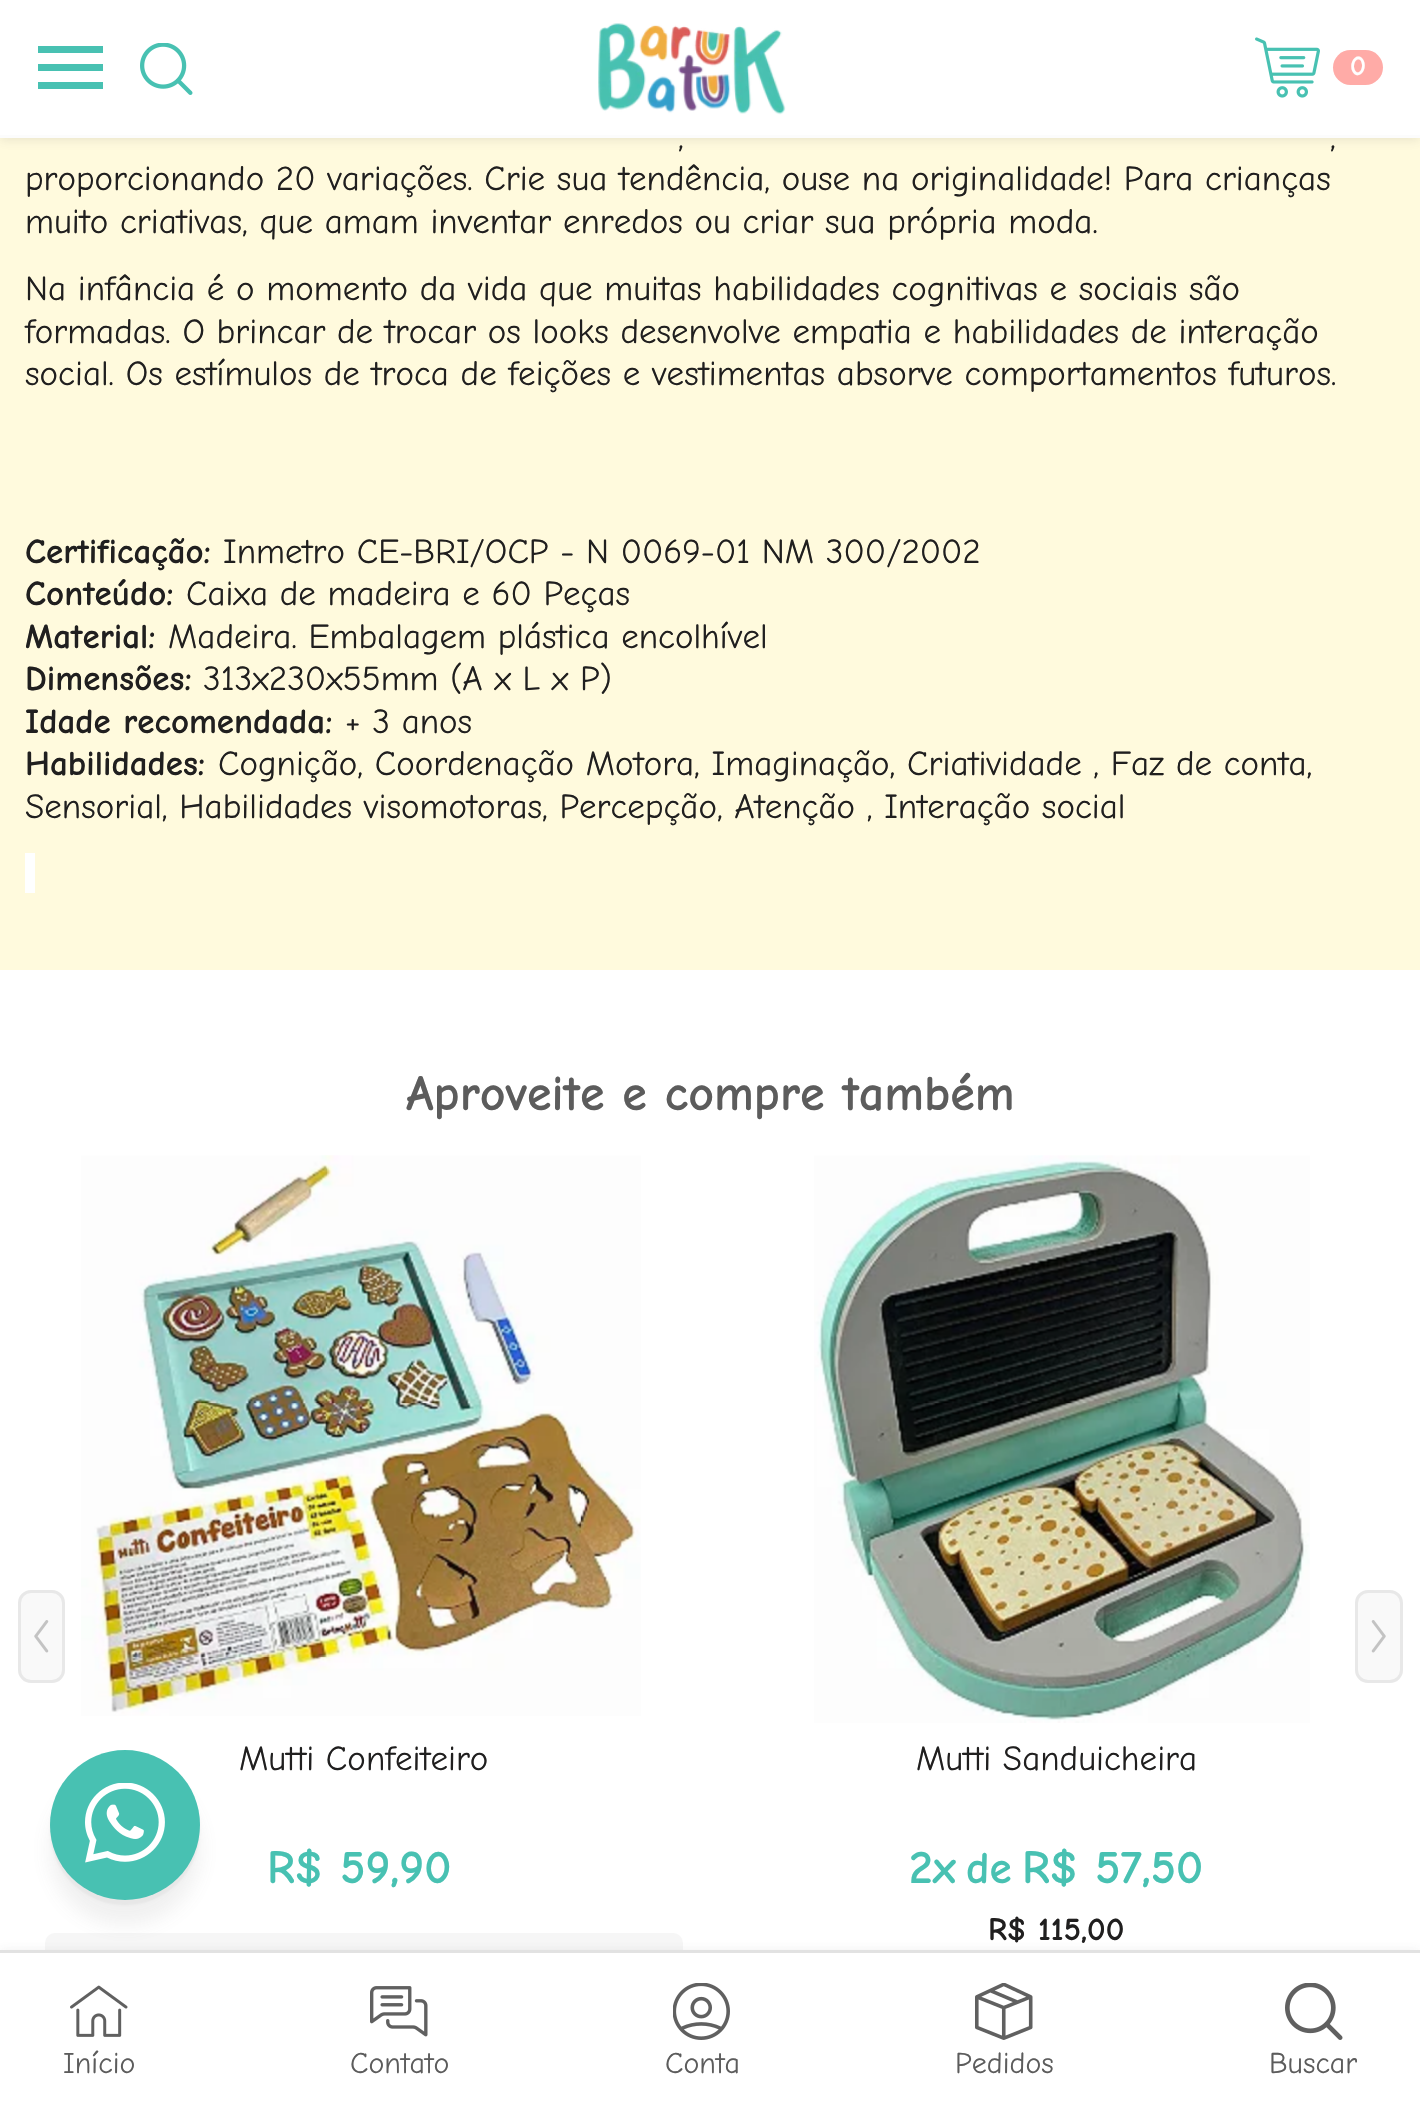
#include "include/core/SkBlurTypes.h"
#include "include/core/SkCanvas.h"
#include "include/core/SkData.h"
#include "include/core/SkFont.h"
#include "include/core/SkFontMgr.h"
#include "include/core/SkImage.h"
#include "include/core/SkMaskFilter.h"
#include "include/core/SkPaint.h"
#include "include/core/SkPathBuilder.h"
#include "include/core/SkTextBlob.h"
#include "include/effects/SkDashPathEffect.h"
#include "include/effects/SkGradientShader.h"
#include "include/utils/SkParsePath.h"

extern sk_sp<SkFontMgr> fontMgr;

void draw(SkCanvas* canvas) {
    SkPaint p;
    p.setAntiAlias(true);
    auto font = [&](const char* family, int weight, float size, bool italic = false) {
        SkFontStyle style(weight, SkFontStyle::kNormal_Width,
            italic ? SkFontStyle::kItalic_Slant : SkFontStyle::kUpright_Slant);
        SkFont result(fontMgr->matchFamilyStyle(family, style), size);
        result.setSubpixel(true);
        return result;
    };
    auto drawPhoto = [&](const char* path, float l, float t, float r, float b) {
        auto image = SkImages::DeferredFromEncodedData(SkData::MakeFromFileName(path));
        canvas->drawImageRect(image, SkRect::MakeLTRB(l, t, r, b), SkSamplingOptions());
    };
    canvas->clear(0xFFFFFFFF);
    p.setColor(0xFFFFFADD);
    canvas->drawRect(SkRect::MakeLTRB(0, 138, 1420, 970), p);
    p.setColor(0x21525252);
    p.setMaskFilter(SkMaskFilter::MakeBlur(kNormal_SkBlurStyle, 5));
    canvas->drawRect(SkRect::MakeLTRB(0, 3, 1420, 140), p);
    p.setMaskFilter(nullptr);
    {
        const struct { float l, t, r, b; SkColor color; } items[] = {
            {0, 0, 1420, 135, 0xFFFFFFFF},
            {0, 135, 1420, 138, 0xFFFCFCFC},
            {38, 82, 103, 89, 0xFF48C1B2},
            {38, 64, 103, 71, 0xFF48C1B2},
            {38, 46, 103, 53, 0xFF48C1B2},
        };
        for (auto [l, t, r, b, color] : items) {
            p.setColor(color);
            canvas->drawRect(SkRect::MakeLTRB(l, t, r, b), p);
        }
    }
    drawPhoto("media/1.png", 140, 43, 193, 95);
    drawPhoto("media/2.png", 598, 23, 786, 115);
    drawPhoto("media/3.png", 1255, 37, 1320, 98);
    p.setColor(0xFFFFABA7);
    canvas->drawRoundRect(SkRect::MakeLTRB(1333, 50, 1383, 85), 17.5f, 17.5f, p);
    auto font1 = font("Comic Neue", 700, 28);
    p.setColor(0xFFFFFFFF);
    canvas->drawString("0", 1350, 75, font1, p);
    auto font2 = font("Comic Neue", 400, 35);
    p.setColor(0xFF201F1F);
    {
        const struct { const char* s; float x, y; } items[] = {
            {",", 678, 148},
            {",", 1330, 148},
            {"proporcionando 20 variações. Crie sua tendência, ouse na originalidade! Para crianças", 25, 190},
            {"muito criativas, que amam inventar enredos ou criar sua própria moda.", 25, 233},
            {"Na infância é o momento da vida que muitas habilidades cognitivas e sociais são", 25, 300},
            {"formadas. O brincar de trocar os looks desenvolve empatia e habilidades de interação", 25, 343},
            {"social. Os estímulos de troca de feições e vestimentas absorve comportamentos futuros.", 25, 385},
        };
        for (auto [s, x, y] : items) {
            canvas->drawString(s, x, y, font2, p);
        }
    }
    auto font3 = font("Comic Neue", 700, 35);
    canvas->drawString("Certificação:", 25, 563, font3, p);
    canvas->drawString("Inmetro CE-BRI/OCP - N 0069-01 NM 300/2002", 223, 563, font2, p);
    canvas->drawString("Conteúdo:", 25, 605, font3, p);
    canvas->drawString("Caixa de madeira e 60 Peças", 186, 605, font2, p);
    canvas->drawString("Material:", 25, 648, font3, p);
    canvas->drawString("Madeira. Embalagem plástica encolhível", 168, 648, font2, p);
    canvas->drawString("Dimensões:", 25, 690, font3, p);
    canvas->drawString("313x230x55mm (A x L x P)", 203, 690, font2, p);
    canvas->drawString("Idade recomendada:", 25, 733, font3, p);
    canvas->drawString("+ 3 anos", 345, 733, font2, p);
    canvas->drawString("Habilidades:", 25, 775, font3, p);
    canvas->drawString("Cognição, Coordenação Motora, Imaginação, Criatividade , Faz de conta,", 218, 775, font2, p);
    canvas->drawString("Sensorial, Habilidades visomotoras, Percepção, Atenção , Interação social", 25, 818, font2, p);
    p.setColor(0xFFFFFFFF);
    canvas->drawRect(SkRect::MakeLTRB(25, 853, 35, 893), p);
    auto font4 = font("Comic Neue", 700, 50);
    p.setColor(0xFF5C5C5C);
    canvas->drawString("Aproveite e compre também", 406, 1110, font4, p);
    p.setColor(0xFFF9F9F9);
    canvas->drawRoundRect(SkRect::MakeLTRB(19.5f, 1591.5f, 63.5f, 1681.5f), 11.5f, 11.5f, p);
    p.setStyle(SkPaint::kStroke_Style);
    p.setStrokeWidth(3);
    p.setColor(0xFFE8E8E8);
    canvas->drawRoundRect(SkRect::MakeLTRB(19.5f, 1591.5f, 63.5f, 1681.5f), 11.5f, 11.5f, p);
    drawPhoto("media/4.png", 34, 1620, 49, 1653);
    p.setStyle(SkPaint::kFill_Style);
    p.setColor(0xFFF9F9F9);
    canvas->drawRoundRect(SkRect::MakeLTRB(1356.5f, 1591.5f, 1401.5f, 1681.5f), 11.5f, 11.5f, p);
    p.setStyle(SkPaint::kStroke_Style);
    p.setColor(0xFFE8E8E8);
    canvas->drawRoundRect(SkRect::MakeLTRB(1356.5f, 1591.5f, 1401.5f, 1681.5f), 11.5f, 11.5f, p);
    drawPhoto("media/5.png", 1371, 1620, 1386, 1653);
    drawPhoto("media/6.png", 81, 1155, 641, 1716);
    p.setStyle(SkPaint::kFill_Style);
    p.setColor(0xFF201F1F);
    canvas->drawString("Mutti Confeiteiro", 239, 1770, font2, p);
    auto font5 = font("Comic Neue", 700, 47.5f);
    p.setColor(0xFF48C1B2);
    canvas->drawString("R$ 59,90", 267, 1883, font5, p);
    p.setColor(0xFFF6F6F6);
    canvas->drawRoundRect(SkRect::MakeLTRB(45, 1933, 683, 2033), 10, 10, p);
    drawPhoto("media/7.png", 814, 1155, 1310, 1723);
    p.setColor(0xFF201F1F);
    canvas->drawString("Mutti Sanduicheira", 916, 1770, font2, p);
    p.setColor(0xFF48C1B2);
    canvas->drawString("2x", 909, 1883, font5, p);
    auto font6 = font("Comic Neue", 700, 45);
    canvas->drawString("de", 966, 1883, font6, p);
    canvas->drawString("R$ 57,50", 1022, 1883, font5, p);
    auto font7 = font("Comic Neue", 700, 32.5f);
    p.setColor(0xFF201F1F);
    canvas->drawString("R$ 115,00", 988, 1940, font7, p);
    p.setColor(0x1A676767);
    p.setMaskFilter(SkMaskFilter::MakeBlur(kNormal_SkBlurStyle, 10));
    canvas->drawRoundRect(SkRect::MakeLTRB(50, 1775, 200, 1925), 75, 75, p);
    p.setMaskFilter(nullptr);
    p.setColor(0x0A000000);
    p.setMaskFilter(SkMaskFilter::MakeBlur(kNormal_SkBlurStyle, 1));
    canvas->drawRoundRect(SkRect::MakeLTRB(50, 1755, 200, 1905), 75, 75, p);
    p.setMaskFilter(nullptr);
    p.setColor(0xFF48C1B2);
    canvas->drawCircle(125, 1825, 75, p);
    drawPhoto("media/8.png", 85, 1783, 165, 1863);
    p.setColor(0x14525252);
    p.setMaskFilter(SkMaskFilter::MakeBlur(kNormal_SkBlurStyle, 5));
    canvas->drawRect(SkRect::MakeLTRB(0, 1950, 1420, 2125), p);
    p.setMaskFilter(nullptr);
    p.setColor(0xFFFFFFFF);
    canvas->drawRect(SkRect::MakeLTRB(0, 1953, 1420, 2123), p);
    p.setColor(0xFFE2E2E2);
    canvas->drawRect(SkRect::MakeLTRB(0, 1950, 1420, 1953), p);
    drawPhoto("media/9.png", 70, 1985, 128, 2037);
    auto font8 = font("Comic Neue", 400, 30);
    p.setColor(0xFF5C5C5C);
    canvas->drawString("Início", 63, 2073, font8, p);
    drawPhoto("media/10.png", 370, 1986, 428, 2037);
    canvas->drawString("Contato", 350, 2073, font8, p);
    drawPhoto("media/11.png", 673, 1983, 730, 2040);
    canvas->drawString("Conta", 665, 2073, font8, p);
    drawPhoto("media/12.png", 975, 1983, 1033, 2040);
    canvas->drawString("Pedidos", 955, 2073, font8, p);
    drawPhoto("media/13.png", 1285, 1983, 1343, 2040);
    canvas->drawString("Buscar", 1269, 2073, font8, p);
}
